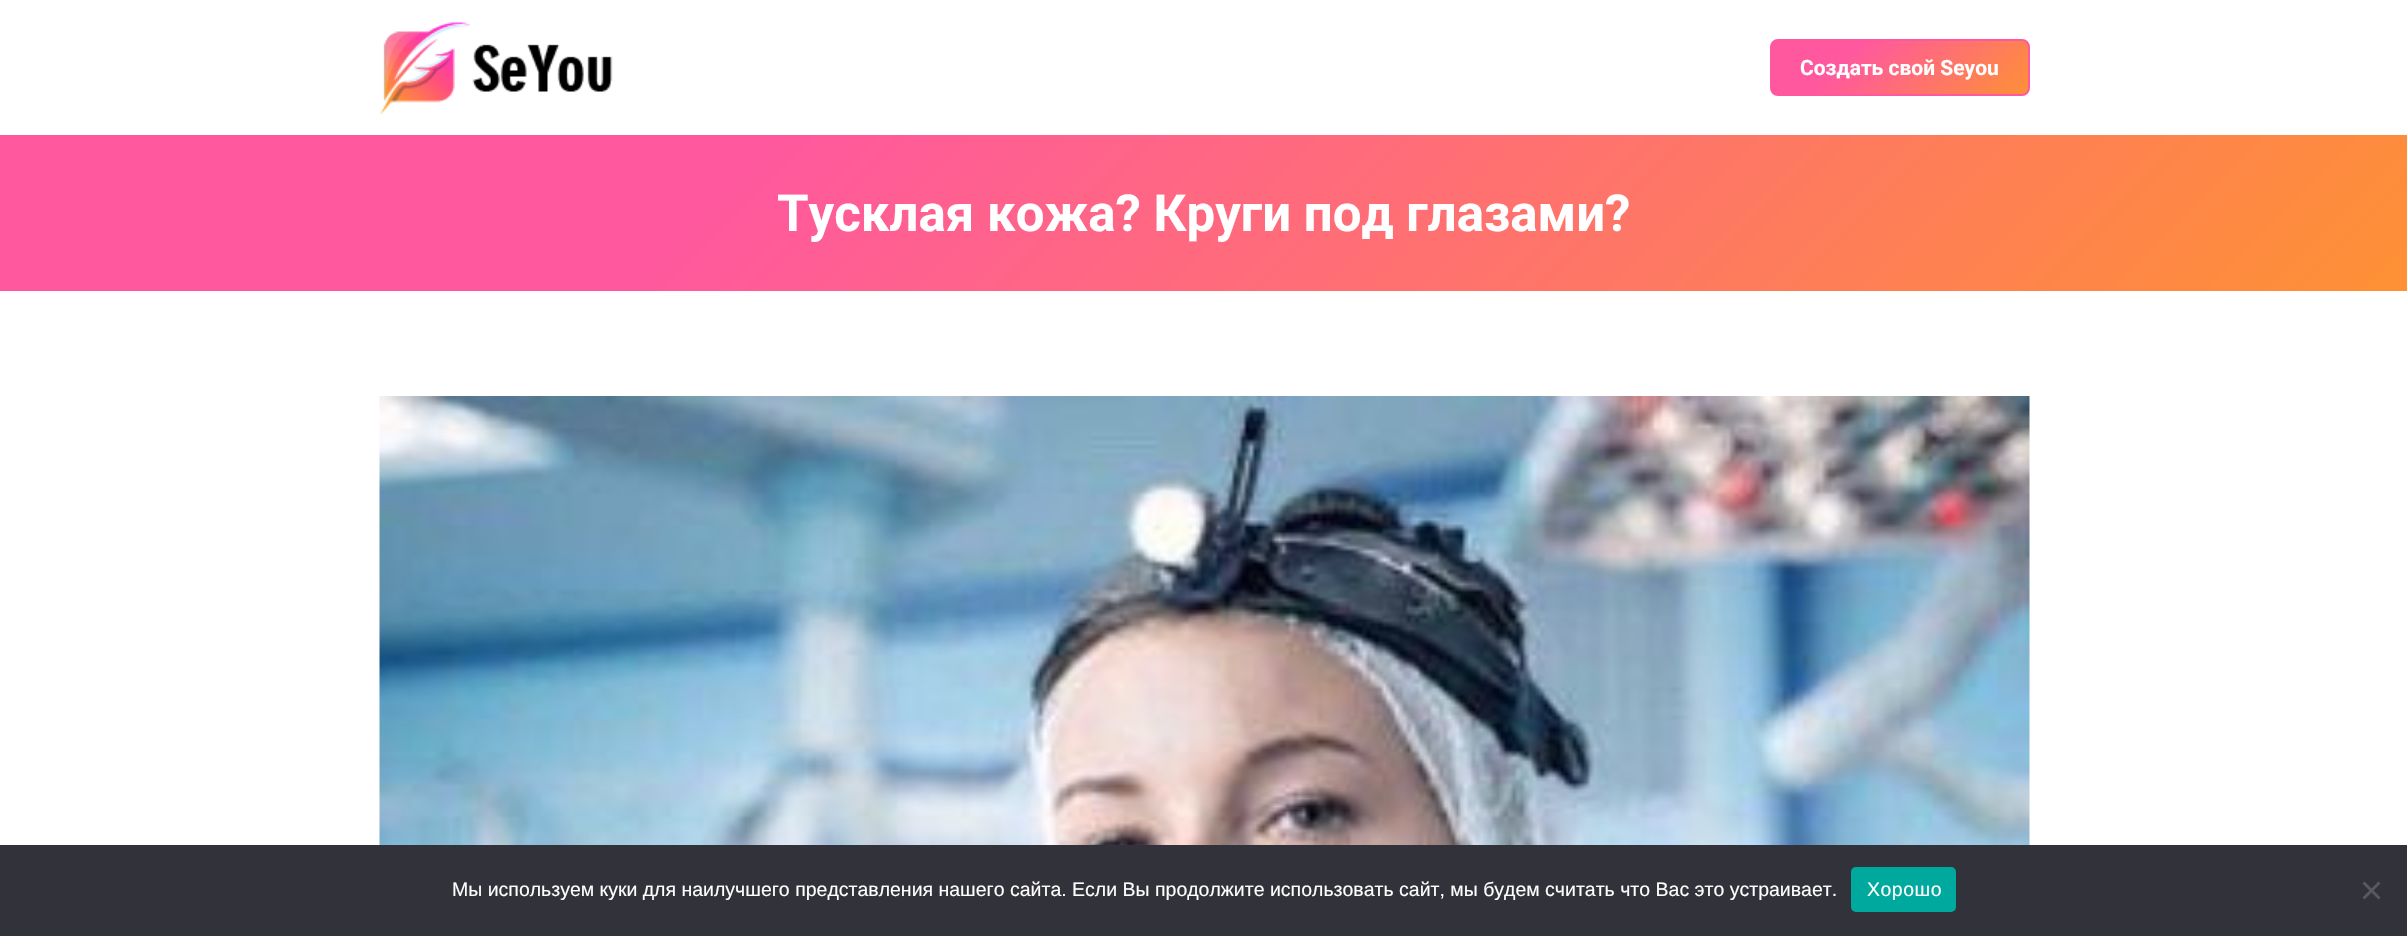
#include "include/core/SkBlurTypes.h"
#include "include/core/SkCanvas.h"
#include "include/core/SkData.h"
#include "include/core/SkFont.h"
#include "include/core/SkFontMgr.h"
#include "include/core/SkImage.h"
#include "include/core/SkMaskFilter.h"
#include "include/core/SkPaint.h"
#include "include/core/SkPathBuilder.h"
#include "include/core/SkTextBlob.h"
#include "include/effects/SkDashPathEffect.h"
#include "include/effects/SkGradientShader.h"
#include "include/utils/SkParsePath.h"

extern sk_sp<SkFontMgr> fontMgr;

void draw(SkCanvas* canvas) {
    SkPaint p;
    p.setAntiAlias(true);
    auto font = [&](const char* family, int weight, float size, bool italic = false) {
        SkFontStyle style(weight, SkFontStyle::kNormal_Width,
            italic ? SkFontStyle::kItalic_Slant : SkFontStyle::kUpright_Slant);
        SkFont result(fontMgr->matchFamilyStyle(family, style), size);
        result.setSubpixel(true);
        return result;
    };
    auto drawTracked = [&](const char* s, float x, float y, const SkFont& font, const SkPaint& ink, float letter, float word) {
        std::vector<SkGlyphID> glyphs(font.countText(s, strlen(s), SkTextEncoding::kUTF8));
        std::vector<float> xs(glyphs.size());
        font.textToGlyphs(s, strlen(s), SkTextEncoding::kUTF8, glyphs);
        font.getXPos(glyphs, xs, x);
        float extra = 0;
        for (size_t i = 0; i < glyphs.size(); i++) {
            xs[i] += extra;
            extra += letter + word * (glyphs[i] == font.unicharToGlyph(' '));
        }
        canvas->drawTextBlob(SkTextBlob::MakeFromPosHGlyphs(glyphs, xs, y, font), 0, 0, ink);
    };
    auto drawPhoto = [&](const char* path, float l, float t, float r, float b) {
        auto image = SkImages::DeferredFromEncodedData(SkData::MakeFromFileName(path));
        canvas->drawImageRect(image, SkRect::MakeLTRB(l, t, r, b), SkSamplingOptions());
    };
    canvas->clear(0xFFFFFFFF);
    drawPhoto("media/1.png", 379, 22, 613, 114);
    {
        const SkColor colors[] = {0xFFFF589F, 0xFFFE9134};
        const float stops[] = {0.3f, 1};
        const SkPoint ends[] = {{1821, -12}, {1979, 147}};
        p.setShader(SkGradientShader::MakeLinear(ends, colors, stops, 2, SkTileMode::kClamp));
        p.setAlpha(255);
    }
    canvas->drawRoundRect(SkRect::MakeLTRB(1771, 40, 2029, 95), 7, 7, p);
    p.setStyle(SkPaint::kStroke_Style);
    p.setStrokeWidth(2);
    p.setShader(nullptr);
    p.setColor(0xFFFF589F);
    canvas->drawRoundRect(SkRect::MakeLTRB(1771, 40, 2029, 95), 7, 7, p);
    auto font1 = font("Roboto", 700, 21);
    p.setStyle(SkPaint::kFill_Style);
    p.setColor(0xFFFFFFFF);
    canvas->drawString("Создать свой Seyou", 1800, 75, font1, p);
    {
        const SkColor colors[] = {0xFFFF589F, 0xFFFE9134};
        const float stops[] = {0.3f, 1};
        const SkPoint ends[] = {{563, -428}, {1845, 854}};
        p.setShader(SkGradientShader::MakeLinear(ends, colors, stops, 2, SkTileMode::kClamp));
        p.setAlpha(255);
    }
    canvas->drawRect(SkRect::MakeLTRB(0, 135, 2407, 291), p);
    auto font2 = font("Roboto", 700, 51);
    p.setShader(nullptr);
    p.setColor(0xFFFFFFFF);
    canvas->drawString("Тусклая кожа? Круги под глазами?", 777, 231, font2, p);
    drawPhoto("media/2.png", 379, 396, 2030, 845);
    p.setColor(0xFF32323A);
    canvas->drawRect(SkRect::MakeLTRB(0, 845, 2407, 936), p);
    auto font3 = font("Liberation Sans", 400, 19.5f);
    p.setColor(0xFFFFFFFF);
    canvas->drawString("Мы используем куки для наилучшего представления нашего сайта. Если Вы продолжите использовать сайт, мы будем считать что Вас это устраивает.", 452, 896, font3, p);
    p.setColor(0xFF00A99D);
    canvas->drawRoundRect(SkRect::MakeLTRB(1851, 867, 1956, 912), 5, 5, p);
    p.setColor(0xFFFFFFFF);
    drawTracked("Хорошо", 1867, 896, font3, p, 0.5f, 0);
    p.setColor(0xFF59595D);
    canvas->drawPath(SkPathBuilder().moveTo(2378.5f, 881.5f).lineTo(2380.5f, 883.5f).lineTo(2364.5f, 899.5f).lineTo(2362.5f, 897.5f).close().detach(), p);
    canvas->drawPath(SkPathBuilder().moveTo(2362.5f, 883.5f).lineTo(2364.5f, 881.5f).lineTo(2380.5f, 897.5f).lineTo(2378.5f, 899.5f).close().detach(), p);
}
